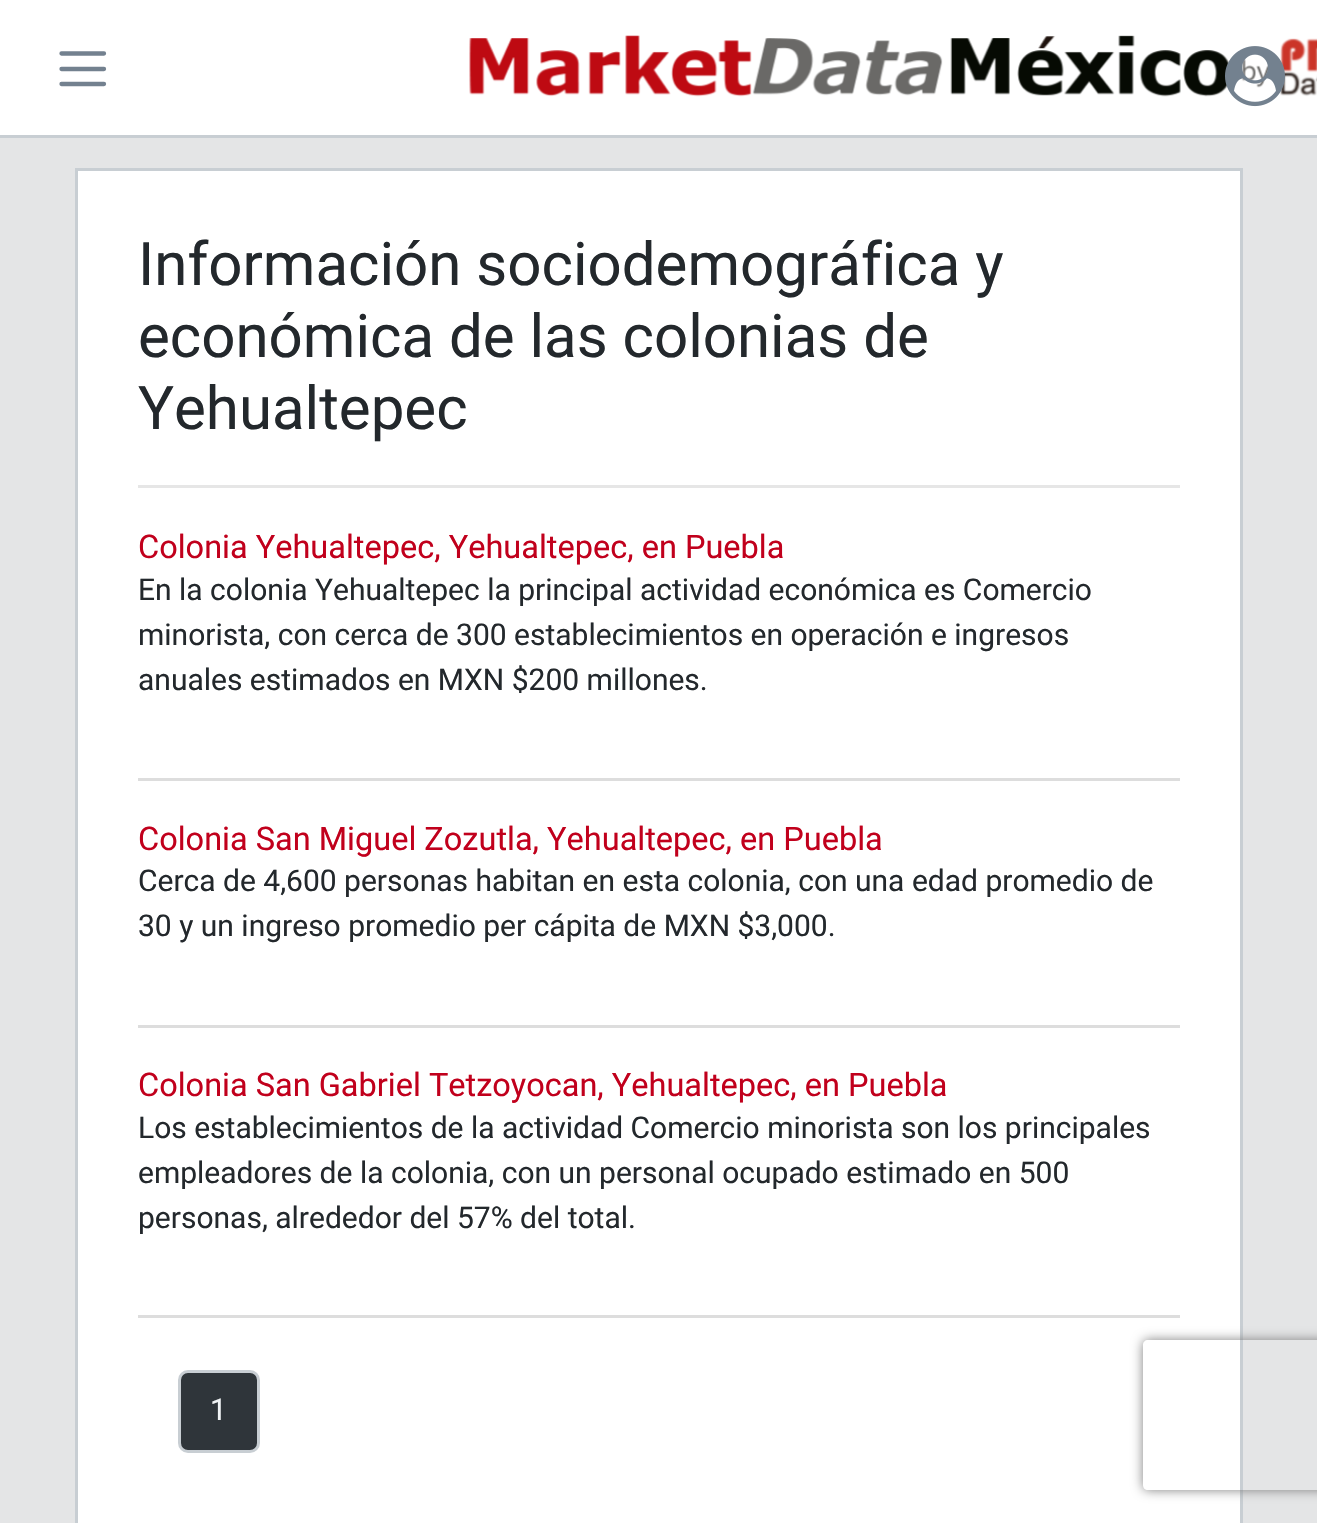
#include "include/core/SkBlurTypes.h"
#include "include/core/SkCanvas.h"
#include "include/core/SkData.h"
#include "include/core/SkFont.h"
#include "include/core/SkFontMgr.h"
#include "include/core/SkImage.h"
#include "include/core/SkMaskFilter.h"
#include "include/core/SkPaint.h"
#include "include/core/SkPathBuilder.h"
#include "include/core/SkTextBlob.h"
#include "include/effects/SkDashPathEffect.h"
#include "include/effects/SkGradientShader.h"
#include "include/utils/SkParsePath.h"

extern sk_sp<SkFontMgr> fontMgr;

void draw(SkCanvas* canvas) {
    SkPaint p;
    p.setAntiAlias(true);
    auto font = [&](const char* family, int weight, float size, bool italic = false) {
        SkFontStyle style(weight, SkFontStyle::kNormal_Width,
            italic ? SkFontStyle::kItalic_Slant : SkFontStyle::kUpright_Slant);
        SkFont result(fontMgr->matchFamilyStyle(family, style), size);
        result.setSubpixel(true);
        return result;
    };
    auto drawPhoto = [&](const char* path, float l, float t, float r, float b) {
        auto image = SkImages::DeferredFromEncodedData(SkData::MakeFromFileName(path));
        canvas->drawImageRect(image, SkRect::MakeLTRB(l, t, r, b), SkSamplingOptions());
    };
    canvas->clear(0xFFE4E5E6);
    p.setColor(0xFFFFFFFF);
    canvas->drawRect(SkRect::MakeLTRB(0, 0, 1317, 135), p);
    p.setColor(0xFFC8CED3);
    canvas->drawRect(SkRect::MakeLTRB(0, 135, 1317, 138), p);
    drawPhoto("media/1.png", 469, 35, 1317, 97);
    p.setStyle(SkPaint::kStroke_Style);
    p.setStrokeWidth(4.3f);
    p.setStrokeCap(SkPaint::kRound_Cap);
    p.setColor(0xFF73818F);
    canvas->drawPath(SkPathBuilder().moveTo(61.5f, 53.5f).lineTo(104, 53.5f).moveTo(61.5f, 69).lineTo(104, 69).moveTo(61.5f, 84).lineTo(104, 84).detach(), p);
    drawPhoto("media/2.png", 1225, 46, 1285, 107);
    p.setStyle(SkPaint::kFill_Style);
    p.setColor(0xFFFFFFFF);
    canvas->drawRect(SkRect::MakeLTRB(76.5f, 169.5f, 1241.5f, 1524.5f), p);
    p.setStyle(SkPaint::kStroke_Style);
    p.setStrokeWidth(3);
    p.setStrokeCap(SkPaint::kButt_Cap);
    p.setColor(0xFFC8CED3);
    canvas->drawRect(SkRect::MakeLTRB(76.5f, 169.5f, 1241.5f, 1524.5f), p);
    auto font1 = font("Roboto", 400, 60);
    p.setStyle(SkPaint::kFill_Style);
    p.setColor(0xFF23282C);
    {
        const struct { const char* s; float x, y; } items[] = {
            {"Información sociodemográfica y", 138, 285},
            {"económica de las colonias de", 138, 357},
            {"Yehualtepec", 138, 429},
        };
        for (auto [s, x, y] : items) {
            canvas->drawString(s, x, y, font1, p);
        }
    }
    p.setColor(0xFFE6E6E6);
    canvas->drawRect(SkRect::MakeLTRB(138, 485, 1180, 488), p);
    p.setColor(0xFFDDDDDD);
    canvas->drawRect(SkRect::MakeLTRB(138, 778, 1180, 781), p);
    auto font2 = font("Roboto", 400, 32.5f);
    p.setColor(0xFFC1001C);
    canvas->drawString("Colonia Yehualtepec, Yehualtepec, en Puebla", 138, 558, font2, p);
    auto font3 = font("Roboto", 400, 30);
    p.setColor(0xFF23282C);
    {
        const struct { const char* s; float x, y; } items[] = {
            {"En la colonia Yehualtepec la principal actividad económica es Comercio", 138, 600},
            {"minorista, con cerca de 300 establecimientos en operación e ingresos", 138, 645},
            {"anuales estimados en MXN $200 millones.", 138, 690},
        };
        for (auto [s, x, y] : items) {
            canvas->drawString(s, x, y, font3, p);
        }
    }
    p.setColor(0xFFDDDDDD);
    canvas->drawRect(SkRect::MakeLTRB(138, 1025, 1180, 1028), p);
    p.setColor(0xFFC1001C);
    canvas->drawString("Colonia San Miguel Zozutla, Yehualtepec, en Puebla", 138, 850, font2, p);
    p.setColor(0xFF23282C);
    canvas->drawString("Cerca de 4,600 personas habitan en esta colonia, con una edad promedio de", 138, 891, font3, p);
    canvas->drawString("30 y un ingreso promedio per cápita de MXN $3,000.", 138, 936, font3, p);
    p.setColor(0xFFDDDDDD);
    canvas->drawRect(SkRect::MakeLTRB(138, 1315, 1180, 1318), p);
    p.setColor(0xFFC1001C);
    canvas->drawString("Colonia San Gabriel Tetzoyocan, Yehualtepec, en Puebla", 138, 1096, font2, p);
    p.setColor(0xFF23282C);
    {
        const struct { const char* s; float x, y; } items[] = {
            {"Los establecimientos de la actividad Comercio minorista son los principales", 138, 1138},
            {"empleadores de la colonia, con un personal ocupado estimado en 500", 138, 1183},
            {"personas, alrededor del 57% del total.", 138, 1228},
        };
        for (auto [s, x, y] : items) {
            canvas->drawString(s, x, y, font3, p);
        }
    }
    p.setColor(0xFF2F353A);
    canvas->drawRoundRect(SkRect::MakeLTRB(179.5f, 1371.5f, 258.5f, 1451.5f), 8.5f, 8.5f, p);
    p.setStyle(SkPaint::kStroke_Style);
    p.setColor(0xFFC8CED3);
    canvas->drawRoundRect(SkRect::MakeLTRB(179.5f, 1371.5f, 258.5f, 1451.5f), 8.5f, 8.5f, p);
    p.setStyle(SkPaint::kFill_Style);
    p.setColor(0xFFF0F3F5);
    canvas->drawString("1", 210, 1420, font3, p);
    canvas->save();
    canvas->clipPath(SkPathBuilder(SkPathFillType::kEvenOdd).moveTo(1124, 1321).lineTo(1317, 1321).lineTo(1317, 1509).lineTo(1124, 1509).close().moveTo(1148, 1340).lineTo(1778, 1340).cubicTo(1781, 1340, 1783, 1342, 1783, 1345).lineTo(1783, 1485).cubicTo(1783, 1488, 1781, 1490, 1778, 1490).lineTo(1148, 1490).cubicTo(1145, 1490, 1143, 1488, 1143, 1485).lineTo(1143, 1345).cubicTo(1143, 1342, 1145, 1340, 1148, 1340).close().detach(), true);
    p.setColor(0xFF808080);
    p.setMaskFilter(SkMaskFilter::MakeBlur(kNormal_SkBlurStyle, 6));
    canvas->drawRoundRect(SkRect::MakeLTRB(1143, 1340, 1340, 1490), 5, 5, p);
    p.setMaskFilter(nullptr);
    canvas->restore();
}
